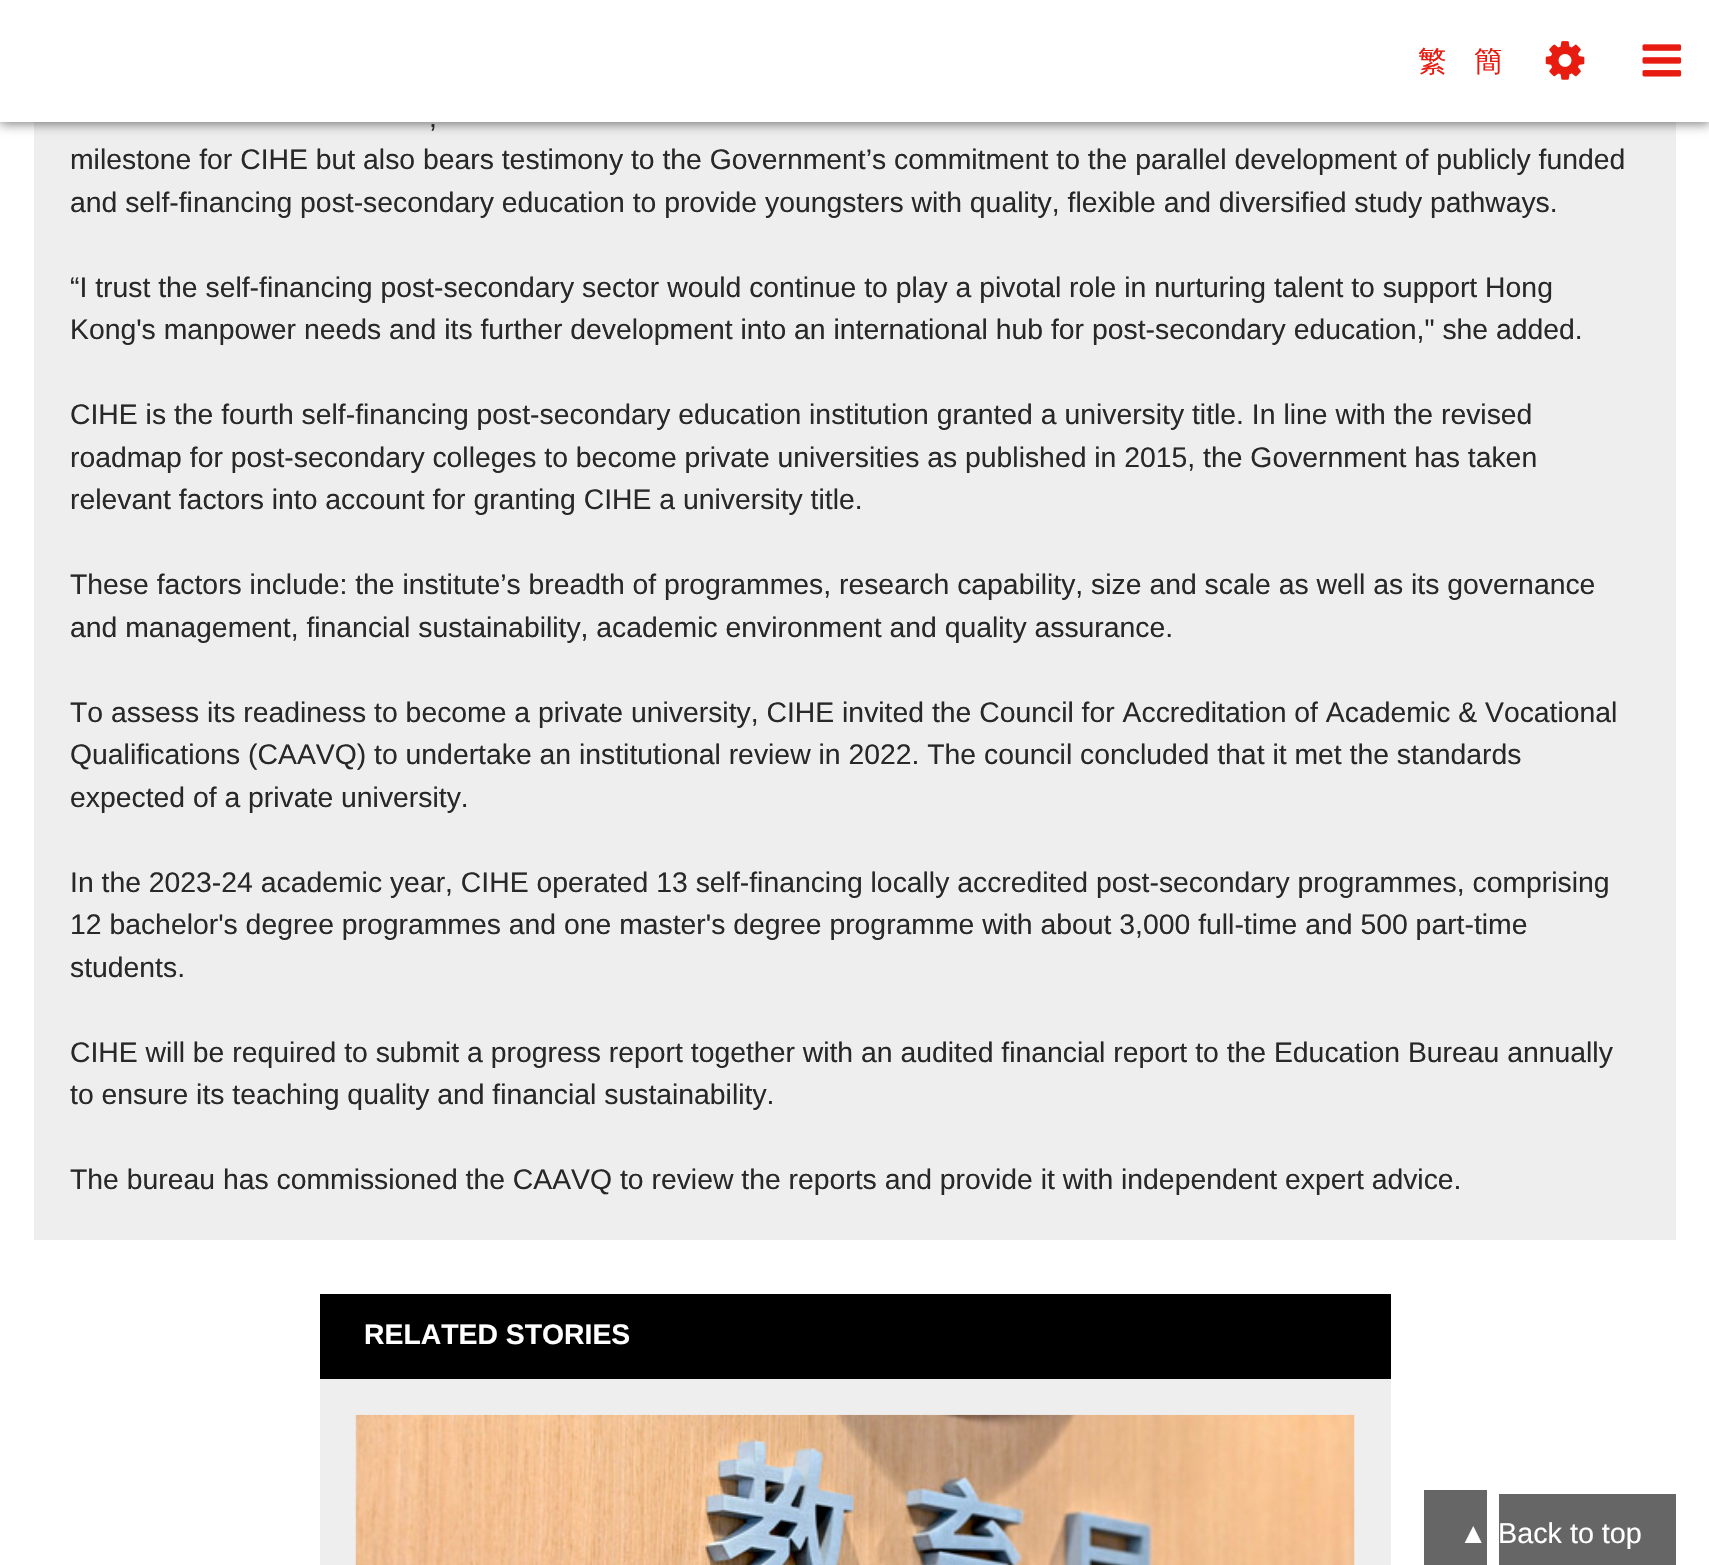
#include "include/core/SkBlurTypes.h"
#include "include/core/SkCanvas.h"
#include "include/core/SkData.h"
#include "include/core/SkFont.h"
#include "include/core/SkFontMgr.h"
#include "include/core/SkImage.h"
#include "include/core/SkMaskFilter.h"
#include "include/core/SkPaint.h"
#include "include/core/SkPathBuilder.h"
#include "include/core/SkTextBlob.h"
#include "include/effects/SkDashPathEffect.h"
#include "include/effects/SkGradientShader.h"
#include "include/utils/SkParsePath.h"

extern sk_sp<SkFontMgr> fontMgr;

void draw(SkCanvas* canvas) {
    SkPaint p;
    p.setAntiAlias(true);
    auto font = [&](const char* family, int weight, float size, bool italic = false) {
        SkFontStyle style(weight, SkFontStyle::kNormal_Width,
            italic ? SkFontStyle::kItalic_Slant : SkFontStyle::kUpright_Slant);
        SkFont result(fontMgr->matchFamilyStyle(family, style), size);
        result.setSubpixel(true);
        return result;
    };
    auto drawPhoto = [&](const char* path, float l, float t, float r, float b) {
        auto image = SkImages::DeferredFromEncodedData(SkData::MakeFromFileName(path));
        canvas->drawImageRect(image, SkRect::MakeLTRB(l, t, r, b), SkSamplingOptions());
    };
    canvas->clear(0xFFFFFFFF);
    p.setColor(0xFFEEEEEE);
    canvas->drawRect(SkRect::MakeLTRB(34, 122, 1676, 1240), p);
    p.setColor(0x80000000);
    p.setMaskFilter(SkMaskFilter::MakeBlur(kNormal_SkBlurStyle, 5.5f));
    canvas->drawRect(SkRect::MakeLTRB(0, 2, 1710, 124), p);
    p.setMaskFilter(nullptr);
    p.setColor(0xFFFFFFFF);
    canvas->drawRect(SkRect::MakeLTRB(0, 0, 1709, 122), p);
    auto font1 = font("WenQuanYi Zen Hei", 500, 28.75f);
    p.setColor(0xFFE81B10);
    canvas->drawString("繁", 1418, 71, font1, p);
    canvas->drawString("簡", 1474, 71, font1, p);
    drawPhoto("media/1.png", 1545, 41, 1585, 80);
    drawPhoto("media/2.png", 1642, 44, 1682, 77);
    auto font2 = font("Liberation Sans", 400, 28.35f);
    p.setColor(0xFF282828);
    {
        const struct { const char* s; float x, y; } items[] = {
            {",", 429, 127},
            {"milestone for CIHE but also bears testimony to the Government’s commitment to the parallel development of publicly funded", 70, 169},
            {"and self-financing post-secondary education to provide youngsters with quality, flexible and diversified study pathways.", 70, 212},
            {"“I trust the self-financing post-secondary sector would continue to play a pivotal role in nurturing talent to support Hong", 70, 297},
            {"Kong's manpower needs and its further development into an international hub for post-secondary education,\" she added.", 70, 339},
            {"CIHE is the fourth self-financing post-secondary education institution granted a university title. In line with the revised", 70, 424},
            {"roadmap for post-secondary colleges to become private universities as published in 2015, the Government has taken", 70, 467},
            {"relevant factors into account for granting CIHE a university title.", 70, 509},
            {"These factors include: the institute’s breadth of programmes, research capability, size and scale as well as its governance", 70, 594},
            {"and management, financial sustainability, academic environment and quality assurance.", 70, 637},
            {"To assess its readiness to become a private university, CIHE invited the Council for Accreditation of Academic & Vocational", 70, 722},
            {"Qualifications (CAAVQ) to undertake an institutional review in 2022. The council concluded that it met the standards", 70, 764},
            {"expected of a private university.", 70, 807},
            {"In the 2023-24 academic year, CIHE operated 13 self-financing locally accredited post-secondary programmes, comprising", 70, 892},
            {"12 bachelor's degree programmes and one master's degree programme with about 3,000 full-time and 500 part-time", 70, 934},
            {"students.", 70, 977},
            {"CIHE will be required to submit a progress report together with an audited financial report to the Education Bureau annually", 70, 1062},
            {"to ensure its teaching quality and financial sustainability.", 70, 1104},
            {"The bureau has commissioned the CAAVQ to review the reports and provide it with independent expert advice.", 70, 1189},
        };
        for (auto [s, x, y] : items) {
            canvas->drawString(s, x, y, font2, p);
        }
    }
    p.setColor(0xFFEEEEEE);
    canvas->drawRect(SkRect::MakeLTRB(320, 1379, 1391, 1565), p);
    p.setColor(0xFF000000);
    canvas->drawRect(SkRect::MakeLTRB(320, 1294, 1391, 1379), p);
    auto font3 = font("Liberation Sans", 700, 28.35f);
    p.setColor(0xFFFFFFFF);
    canvas->drawString("RELATED STORIES", 364, 1344, font3, p);
    drawPhoto("media/3.png", 355, 1414, 1355, 1565);
    p.setColor(0xFF666666);
    canvas->drawRect(SkRect::MakeLTRB(1424, 1490, 1487, 1565), p);
    canvas->drawRect(SkRect::MakeLTRB(1499, 1494, 1676, 1565), p);
    auto font4 = font("Liberation Sans", 400, 28.75f);
    p.setColor(0xFFFFFFFF);
    canvas->drawString("▲", 1459, 1543, font4, p);
    canvas->drawString("Back to top", 1498, 1543, font4, p);
}
